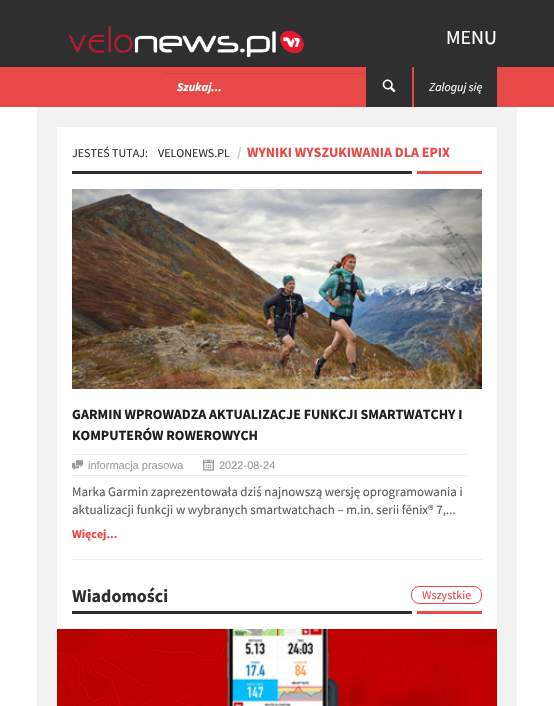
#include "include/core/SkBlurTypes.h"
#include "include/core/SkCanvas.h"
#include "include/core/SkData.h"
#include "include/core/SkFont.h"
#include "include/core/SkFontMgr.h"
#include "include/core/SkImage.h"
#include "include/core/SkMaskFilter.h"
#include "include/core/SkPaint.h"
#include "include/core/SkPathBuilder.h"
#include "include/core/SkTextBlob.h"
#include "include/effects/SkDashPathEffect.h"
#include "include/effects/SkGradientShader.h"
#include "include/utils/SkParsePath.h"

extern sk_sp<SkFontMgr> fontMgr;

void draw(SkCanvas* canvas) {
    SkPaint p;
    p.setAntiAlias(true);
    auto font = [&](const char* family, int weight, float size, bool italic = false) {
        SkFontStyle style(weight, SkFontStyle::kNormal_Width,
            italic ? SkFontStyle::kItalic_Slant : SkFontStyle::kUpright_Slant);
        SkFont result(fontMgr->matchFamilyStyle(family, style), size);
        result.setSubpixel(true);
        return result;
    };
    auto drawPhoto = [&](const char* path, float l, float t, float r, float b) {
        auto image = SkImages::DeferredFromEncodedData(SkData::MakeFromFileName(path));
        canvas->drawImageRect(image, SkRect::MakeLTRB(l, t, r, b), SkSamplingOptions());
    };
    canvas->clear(0xFFFFFFFF);
    p.setColor(0xFF2F2F2F);
    canvas->drawRect(SkRect::MakeLTRB(0, 0, 554, 67), p);
    drawPhoto("media/1.png", 68, 25, 304, 58);
    auto font1 = font("Source Sans Pro", 400, 20);
    p.setColor(0xFFFFFFFF);
    canvas->drawString("MENU", 446, 44, font1, p);
    p.setColor(0xFFE64946);
    canvas->drawRect(SkRect::MakeLTRB(0, 67, 554, 107), p);
    p.setColor(0xFFD54441);
    canvas->drawPath(SkPathBuilder().moveTo(166, 74).lineTo(362, 74).cubicTo(364, 74, 366, 76, 366, 78).lineTo(366, 77).cubicTo(366, 75, 364, 73, 362, 73).lineTo(166, 73).cubicTo(164, 73, 162, 75, 162, 77).lineTo(162, 78).cubicTo(162, 76, 164, 74, 166, 74).close().detach(), p);
    auto font2 = font("Source Sans Pro", 700, 12, true);
    p.setColor(0xFFFFFFFF);
    canvas->drawString("Szukaj...", 177, 91, font2, p);
    p.setColor(0xFF2F2F2F);
    canvas->drawRect(SkRect::MakeLTRB(366, 67, 412, 107), p);
    drawPhoto("media/2.png", 382, 79, 396, 93);
    canvas->drawRect(SkRect::MakeLTRB(414, 67, 497, 107), p);
    auto font3 = font("Source Sans Pro", 400, 12, true);
    p.setColor(0xFFFFFFFF);
    canvas->drawString("Zaloguj się", 429, 91, font3, p);
    p.setStyle(SkPaint::kStroke_Style);
    p.setStrokeWidth(20);
    p.setColor(0xFFF2F2F2);
    canvas->drawRect(SkRect::MakeLTRB(47, 117, 507, 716), p);
    p.setStyle(SkPaint::kFill_Style);
    p.setColor(0xFF2F2F2F);
    canvas->drawRect(SkRect::MakeLTRB(72, 171, 412, 174), p);
    auto font4 = font("Source Sans Pro", 400, 12);
    canvas->drawString("JESTEŚ TUTAJ:", 72, 157, font4, p);
    canvas->drawString("VELONEWS.PL", 158, 157, font4, p);
    auto font5 = font("Source Sans Pro", 700, 14);
    p.setColor(0xFFCCCCCC);
    canvas->drawString("/", 237, 157, font5, p);
    p.setColor(0xFFE64946);
    canvas->drawString("WYNIKI WYSZUKIWANIA DLA EPIX", 247, 157, font5, p);
    drawPhoto("media/3.png", 412, 171, 482, 174);
    p.setColor(0xFFEDEDED);
    canvas->drawRect(SkRect::MakeLTRB(72, 559, 482, 560), p);
    drawPhoto("media/4.png", 72, 189, 482, 389);
    p.setColor(0xFF1F1F1F);
    canvas->drawString("GARMIN WPROWADZA AKTUALIZACJE FUNKCJI SMARTWATCHY I", 72, 419, font5, p);
    canvas->drawString("KOMPUTERÓW ROWEROWYCH", 72, 440, font5, p);
    p.setColor(0xFFEDEDED);
    canvas->drawRect(SkRect::MakeLTRB(72, 454, 467, 455), p);
    canvas->drawRect(SkRect::MakeLTRB(72, 475, 467, 476), p);
    drawPhoto("media/5.png", 72, 460, 83, 470);
    auto font6 = font("Liberation Sans", 400, 11);
    p.setColor(0xFF9C9C9C);
    canvas->drawString("informacja prasowa", 88, 469, font6, p);
    drawPhoto("media/6.png", 203, 459, 214, 471);
    canvas->drawString("2022-08-24", 219, 469, font6, p);
    auto font7 = font("Source Sans Pro", 400, 13);
    p.setColor(0xFF5B5B5B);
    canvas->drawString("Marka Garmin zaprezentowała dziś najnowszą wersję oprogramowania i", 72, 496, font7, p);
    canvas->drawString("aktualizacji funkcji w wybranych smartwatchach – m.in. serii fēnix® 7,...", 72, 514, font7, p);
    auto font8 = font("Source Sans Pro", 700, 12);
    p.setColor(0xFFE64946);
    canvas->drawString("Więcej...", 72, 538, font8, p);
    p.setColor(0xFF2F2F2F);
    canvas->drawRect(SkRect::MakeLTRB(72, 611, 412, 614), p);
    auto font9 = font("Source Sans Pro", 700, 18);
    canvas->drawString("Wiadomości", 72, 602, font9, p);
    p.setStyle(SkPaint::kStroke_Style);
    p.setStrokeWidth(1);
    p.setColor(0xFFE64946);
    canvas->drawRoundRect(SkRect::MakeLTRB(411.5f, 586.5f, 481.5f, 603.5f), 7.5f, 7.5f, p);
    p.setStyle(SkPaint::kFill_Style);
    canvas->drawString("Wszystkie", 422, 599, font4, p);
    drawPhoto("media/3.png", 412, 611, 482, 614);
    drawPhoto("media/7.png", 57, 629, 497, 706);
}
